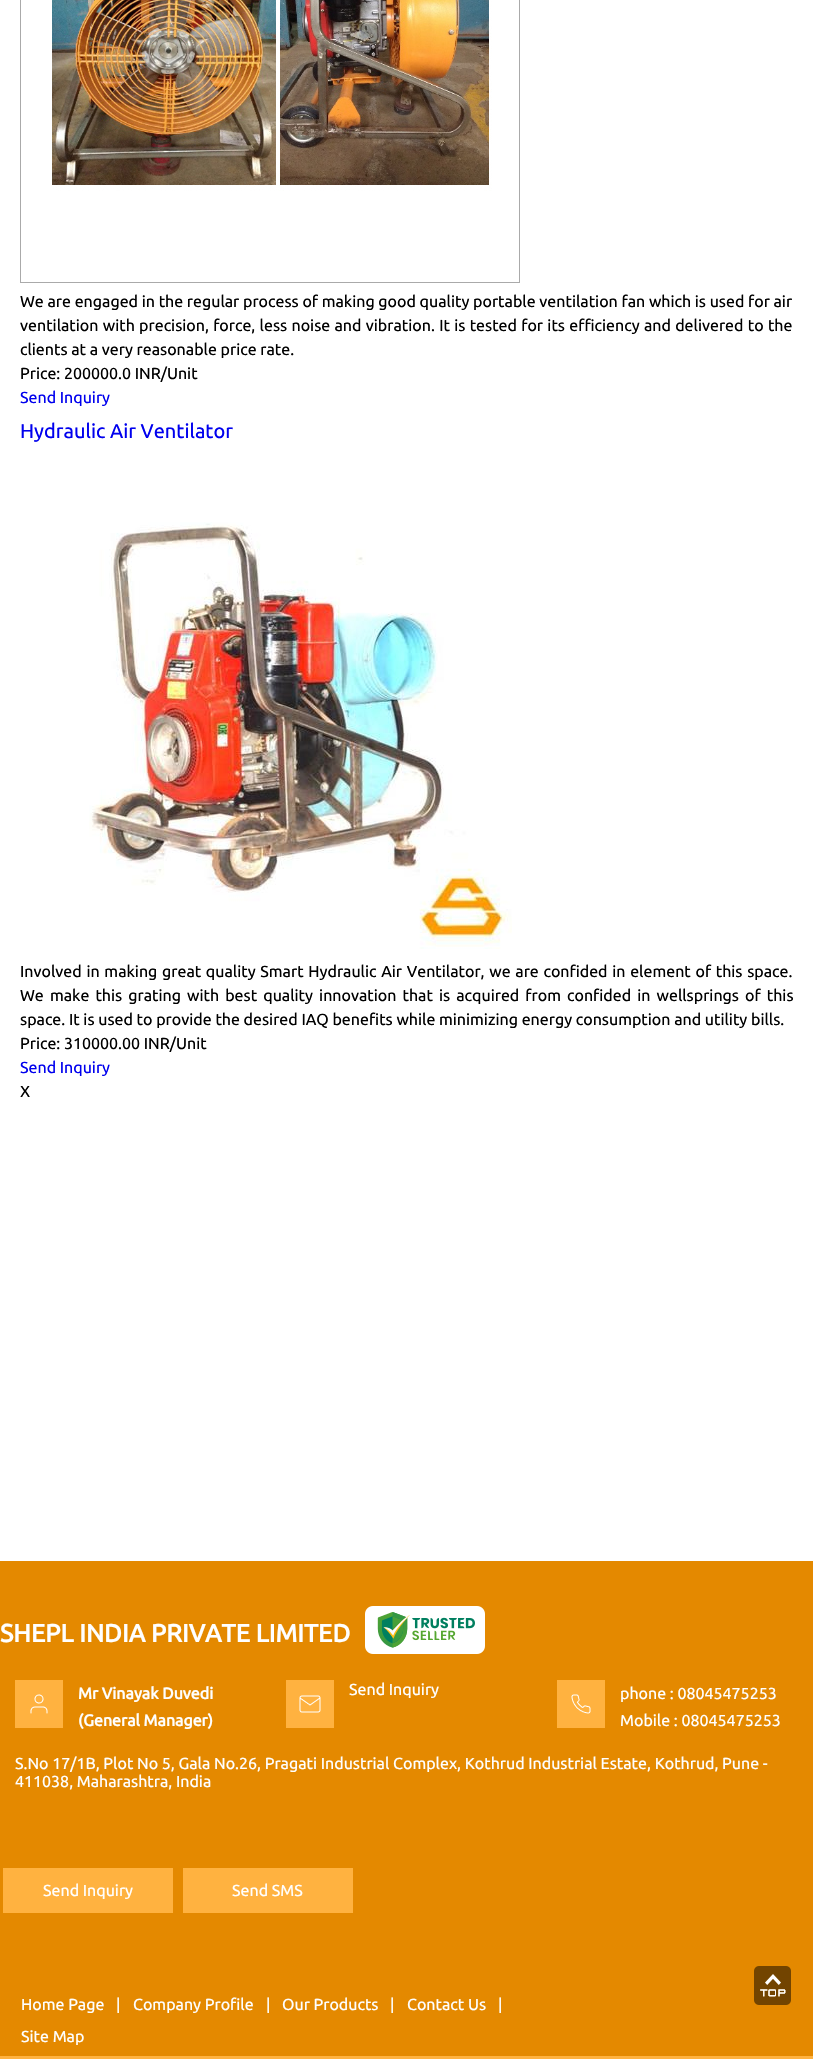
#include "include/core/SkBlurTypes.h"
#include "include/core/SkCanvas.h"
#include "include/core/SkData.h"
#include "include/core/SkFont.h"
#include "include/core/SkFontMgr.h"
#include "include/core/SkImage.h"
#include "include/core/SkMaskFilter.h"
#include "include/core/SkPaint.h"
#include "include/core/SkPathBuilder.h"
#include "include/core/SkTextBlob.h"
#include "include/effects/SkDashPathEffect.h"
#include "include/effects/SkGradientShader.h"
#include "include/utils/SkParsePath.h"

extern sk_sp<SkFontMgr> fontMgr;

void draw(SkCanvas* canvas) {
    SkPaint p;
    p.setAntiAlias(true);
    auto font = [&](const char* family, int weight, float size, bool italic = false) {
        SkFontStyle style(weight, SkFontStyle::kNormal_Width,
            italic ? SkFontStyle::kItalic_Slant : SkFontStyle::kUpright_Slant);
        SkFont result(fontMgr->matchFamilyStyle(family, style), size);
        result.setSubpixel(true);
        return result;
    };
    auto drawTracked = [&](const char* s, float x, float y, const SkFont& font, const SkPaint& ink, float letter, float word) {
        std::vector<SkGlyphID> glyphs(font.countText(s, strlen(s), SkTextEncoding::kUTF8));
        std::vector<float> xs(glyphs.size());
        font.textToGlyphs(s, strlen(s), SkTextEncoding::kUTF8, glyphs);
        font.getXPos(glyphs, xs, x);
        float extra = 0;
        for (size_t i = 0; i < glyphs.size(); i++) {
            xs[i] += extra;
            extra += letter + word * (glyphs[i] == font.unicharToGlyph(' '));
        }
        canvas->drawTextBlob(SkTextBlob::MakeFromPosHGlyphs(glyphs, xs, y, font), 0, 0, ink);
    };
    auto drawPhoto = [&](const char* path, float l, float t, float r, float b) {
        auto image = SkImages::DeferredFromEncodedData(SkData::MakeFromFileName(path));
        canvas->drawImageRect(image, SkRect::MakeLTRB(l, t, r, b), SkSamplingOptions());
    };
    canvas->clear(0xFFFFFFFF);
    drawPhoto("media/1.png", 20, 0, 520, 283);
    auto font1 = font("Ubuntu", 400, 16);
    p.setColor(0xFF000000);
    canvas->drawString("We are engaged in the regular process of making good quality portable ventilation fan which is used for air", 20, 307, font1, p);
    drawTracked("ventilation with precision, force, less noise and vibration. It is tested for its efficiency and delivered to the", 20, 331, font1, p, 0, 0.6f);
    canvas->drawString("clients at a very reasonable price rate.", 20, 355, font1, p);
    canvas->drawString("Price: 200000.0 INR/Unit", 20, 379, font1, p);
    p.setColor(0xFF0000EE);
    canvas->drawString("Send Inquiry", 20, 403, font1, p);
    auto font2 = font("Ubuntu", 400, 20);
    canvas->drawString("Hydraulic Air Ventilator", 20, 438, font2, p);
    drawPhoto("media/2.png", 89, 522, 512, 949);
    p.setColor(0xFF000000);
    drawTracked("Involved in making great quality Smart Hydraulic Air Ventilator, we are confided in element of this space.", 20, 977, font1, p, 0, 1);
    drawTracked("We make this grating with best quality innovation that is acquired from confided in wellsprings of this", 20, 1001, font1, p, 0, 2.4f);
    canvas->drawString("space. It is used to provide the desired IAQ benefits while minimizing energy consumption and utility bills.", 20, 1025, font1, p);
    canvas->drawString("Price: 310000.00 INR/Unit", 20, 1049, font1, p);
    p.setColor(0xFF0000EE);
    canvas->drawString("Send Inquiry", 20, 1073, font1, p);
    p.setColor(0xFF000000);
    canvas->drawString("X", 20, 1097, font1, p);
    p.setColor(0xFFE48900);
    canvas->drawRect(SkRect::MakeLTRB(0, 1561, 813, 2056), p);
    auto font3 = font("Ubuntu", 700, 25);
    p.setColor(0xFFFFFFFF);
    canvas->drawString("SHEPL INDIA PRIVATE LIMITED", 0, 1642, font3, p);
    drawPhoto("media/3.png", 365, 1606, 485, 1654);
    p.setColor(0xFFFFB240);
    canvas->drawRect(SkRect::MakeLTRB(15, 1680, 63, 1728), p);
    drawPhoto("media/4.png", 30, 1694, 48, 1714);
    auto font4 = font("Ubuntu", 700, 16);
    p.setColor(0xFFFFFFFF);
    canvas->drawString("Mr Vinayak Duvedi", 78, 1699, font4, p);
    canvas->drawString("(General Manager)", 78, 1726, font4, p);
    p.setColor(0xFFFFB240);
    canvas->drawRect(SkRect::MakeLTRB(286, 1680, 334, 1728), p);
    drawPhoto("media/5.png", 299, 1695, 321, 1713);
    p.setColor(0xFFFFFFFF);
    canvas->drawString("Send Inquiry", 349, 1695, font1, p);
    p.setColor(0xFFFFB240);
    canvas->drawRect(SkRect::MakeLTRB(557, 1680, 605, 1728), p);
    drawPhoto("media/6.png", 571, 1694, 591, 1714);
    p.setColor(0xFFFFFFFF);
    {
        const struct { const char* s; float x, y; } items[] = {
            {"phone : 08045475253", 620, 1699},
            {"Mobile : 08045475253", 620, 1726},
            {"S.No 17/1B, Plot No 5, Gala No.26, Pragati Industrial Complex, Kothrud Industrial Estate, Kothrud, Pune -", 15, 1769},
            {"411038, Maharashtra, India", 15, 1787},
        };
        for (auto [s, x, y] : items) {
            canvas->drawString(s, x, y, font1, p);
        }
    }
    p.setColor(0xFFFFB240);
    canvas->drawRect(SkRect::MakeLTRB(3, 1868, 173, 1913), p);
    p.setColor(0xFFFFFFFF);
    canvas->drawString("Send Inquiry", 43, 1896, font1, p);
    p.setColor(0xFFFFB240);
    canvas->drawRect(SkRect::MakeLTRB(183, 1868, 353, 1913), p);
    p.setColor(0xFFFFFFFF);
    canvas->drawString("Send SMS", 232, 1896, font1, p);
    drawPhoto("media/7.png", 754, 1966, 791, 2005);
    {
        const struct { const char* s; float x, y; } items[] = {
            {"Home Page", 21, 2010},
            {"|", 116, 2010},
            {"Company Profile", 133, 2010},
            {"|", 266, 2010},
            {"Our Products", 282, 2010},
            {"|", 390, 2010},
            {"Contact Us", 407, 2010},
            {"|", 498, 2010},
            {"Site Map", 21, 2042},
        };
        for (auto [s, x, y] : items) {
            canvas->drawString(s, x, y, font1, p);
        }
    }
    p.setColor(0xFFFFB240);
    canvas->drawRect(SkRect::MakeLTRB(0, 2056, 813, 2059), p);
}
